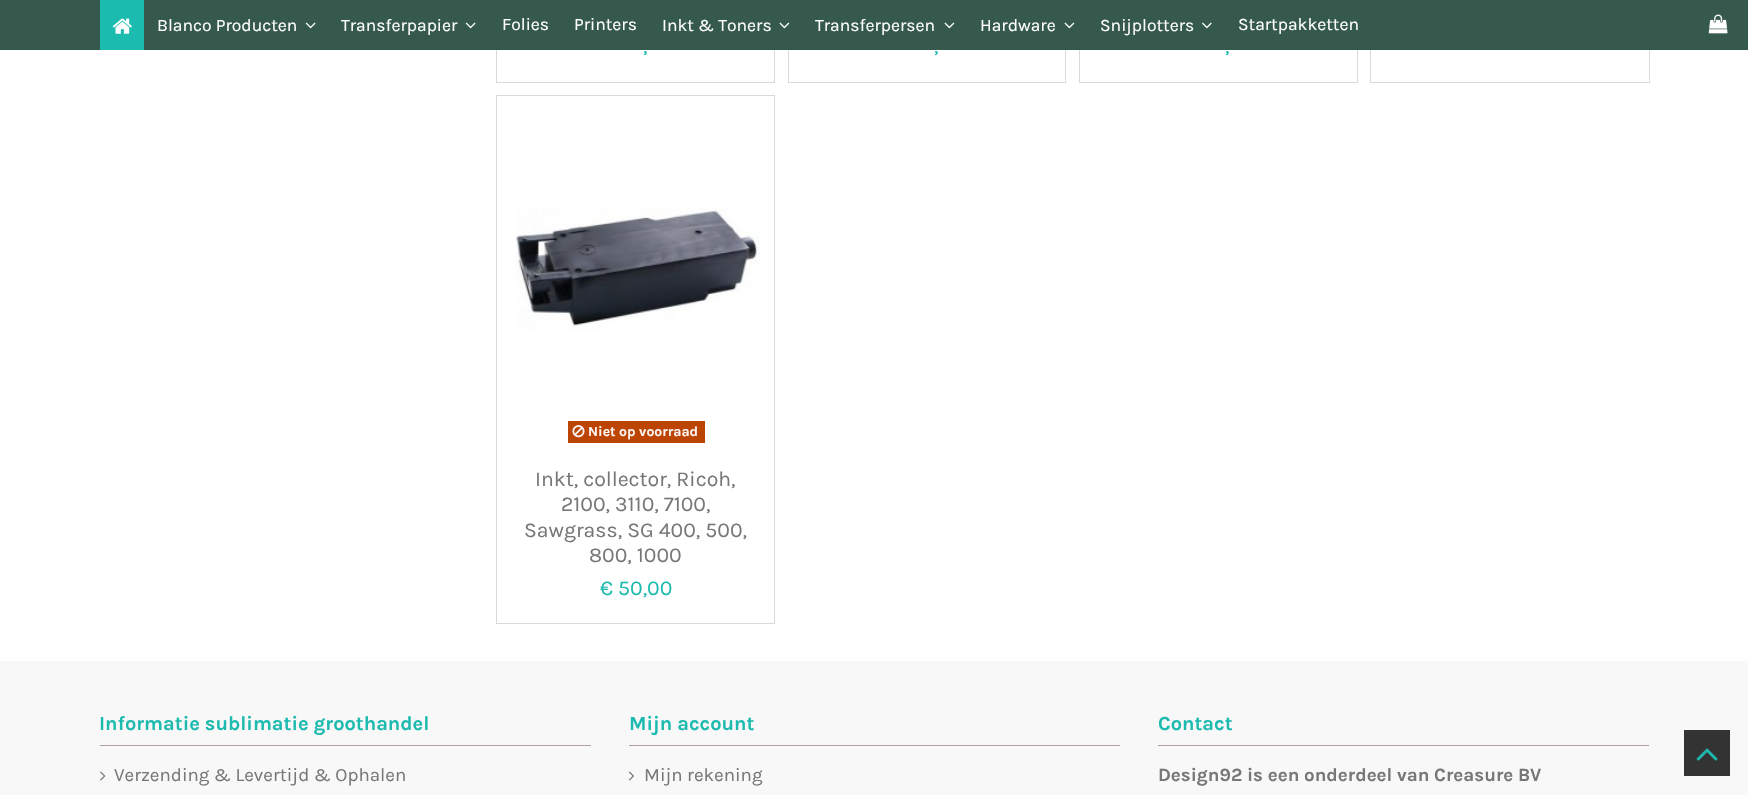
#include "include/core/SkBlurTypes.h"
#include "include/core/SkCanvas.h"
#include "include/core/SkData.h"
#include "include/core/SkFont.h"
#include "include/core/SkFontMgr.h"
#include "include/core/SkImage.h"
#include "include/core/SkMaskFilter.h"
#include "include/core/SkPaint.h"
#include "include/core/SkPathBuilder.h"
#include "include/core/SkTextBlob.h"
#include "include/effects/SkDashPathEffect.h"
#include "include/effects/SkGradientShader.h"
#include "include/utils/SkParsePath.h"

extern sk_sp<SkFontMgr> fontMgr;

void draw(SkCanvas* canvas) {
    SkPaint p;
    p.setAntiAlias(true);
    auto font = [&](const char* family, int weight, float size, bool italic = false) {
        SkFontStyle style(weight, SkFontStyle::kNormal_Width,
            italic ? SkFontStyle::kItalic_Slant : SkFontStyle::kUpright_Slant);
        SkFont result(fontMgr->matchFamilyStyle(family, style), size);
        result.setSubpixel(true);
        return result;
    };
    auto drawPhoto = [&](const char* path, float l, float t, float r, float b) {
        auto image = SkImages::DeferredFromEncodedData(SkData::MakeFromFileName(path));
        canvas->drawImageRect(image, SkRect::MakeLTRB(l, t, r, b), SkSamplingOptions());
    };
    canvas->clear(0xFFFFFFFF);
    p.setStyle(SkPaint::kStroke_Style);
    p.setStrokeWidth(1);
    p.setColor(0xFFD9D9D9);
    canvas->drawRect(SkRect::MakeLTRB(496.5f, -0.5f, 774.5f, 82.5f), p);
    canvas->drawRect(SkRect::MakeLTRB(788.5f, -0.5f, 1065.5f, 82.5f), p);
    canvas->drawRect(SkRect::MakeLTRB(1079.5f, -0.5f, 1357.5f, 82.5f), p);
    canvas->drawRect(SkRect::MakeLTRB(1370.5f, -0.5f, 1649.5f, 82.5f), p);
    p.setStyle(SkPaint::kFill_Style);
    p.setColor(0xFF36594D);
    canvas->drawRect(SkRect::MakeLTRB(0, 0, 1748, 50), p);
    p.setColor(0xFF1BBBB0);
    canvas->drawRect(SkRect::MakeLTRB(100, 0, 144, 50), p);
    drawPhoto("media/1.png", 112, 18, 132, 34);
    auto font1 = font("Karla", 400, 17.5f);
    p.setColor(0xFFFFFFFF);
    canvas->drawString("Blanco Producten", 157, 31, font1, p);
    drawPhoto("media/2.png", 305, 22, 316, 29);
    canvas->drawString("Transferpapier", 341, 31, font1, p);
    drawPhoto("media/2.png", 465, 22, 476, 29);
    {
        const struct { const char* s; float x, y; } items[] = {
            {"Folies", 502, 30},
            {"Printers", 574, 30},
            {"Inkt & Toners", 662, 31},
        };
        for (auto [s, x, y] : items) {
            canvas->drawString(s, x, y, font1, p);
        }
    }
    drawPhoto("media/3.png", 779, 22, 790, 29);
    canvas->drawString("Transferpersen", 815, 31, font1, p);
    drawPhoto("media/3.png", 944, 22, 955, 29);
    canvas->drawString("Hardware", 980, 31, font1, p);
    drawPhoto("media/3.png", 1064, 22, 1075, 29);
    canvas->drawString("Snijplotters", 1100, 31, font1, p);
    drawPhoto("media/4.png", 1202, 22, 1212, 29);
    canvas->drawString("Startpakketten", 1238, 30, font1, p);
    drawPhoto("media/5.png", 1708, 14, 1728, 34);
    auto font2 = font("Karla", 400, 21.25f);
    p.setColor(0xFF1DBAAF);
    {
        const struct { const char* s; float x, y; } items[] = {
            {",", 643, 53},
            {",", 934, 53},
            {",", 1225, 53},
        };
        for (auto [s, x, y] : items) {
            canvas->drawString(s, x, y, font2, p);
        }
    }
    p.setStyle(SkPaint::kStroke_Style);
    p.setColor(0xFFD9D9D9);
    canvas->drawRect(SkRect::MakeLTRB(496.5f, 95.5f, 774.5f, 623.5f), p);
    drawPhoto("media/6.png", 515, 208, 760, 330);
    p.setStyle(SkPaint::kFill_Style);
    p.setColor(0xFFBC4503);
    canvas->drawRect(SkRect::MakeLTRB(568, 421, 705, 443), p);
    drawPhoto("media/7.png", 572, 425, 585, 438);
    auto font3 = font("Karla", 700, 14);
    p.setColor(0xFFFFF7F7);
    canvas->drawString("Niet op voorraad", 588, 436, font3, p);
    p.setColor(0xFF777777);
    {
        const struct { const char* s; float x, y; } items[] = {
            {"Inkt, collector, Ricoh,", 535, 486},
            {"2100, 3110, 7100,", 561, 511},
            {"Sawgrass, SG 400, 500,", 524, 537},
            {"800, 1000", 589, 562},
        };
        for (auto [s, x, y] : items) {
            canvas->drawString(s, x, y, font2, p);
        }
    }
    p.setColor(0xFF1DBAAF);
    canvas->drawString("€ 50,00", 600, 595, font2, p);
    p.setColor(0xFFF8F8F8);
    canvas->drawRect(SkRect::MakeLTRB(0, 661, 1748, 795), p);
    p.setColor(0xFFACA0A0);
    canvas->drawRect(SkRect::MakeLTRB(100, 745, 591, 746), p);
    auto font4 = font("Karla", 700, 20);
    p.setColor(0xFF1DBAAF);
    canvas->drawString("Informatie sublimatie groothandel", 99, 730, font4, p);
    drawPhoto("media/8.png", 100, 771, 106, 781);
    auto font5 = font("Karla", 400, 18.75f);
    p.setColor(0xFF777777);
    canvas->drawString("Verzending & Levertijd & Ophalen", 114, 781, font5, p);
    p.setColor(0xFFACA0A0);
    canvas->drawRect(SkRect::MakeLTRB(629, 745, 1120, 746), p);
    p.setColor(0xFF1DBAAF);
    canvas->drawString("Mijn account", 629, 730, font4, p);
    drawPhoto("media/9.png", 628, 771, 634, 781);
    p.setColor(0xFF777777);
    canvas->drawString("Mijn rekening", 644, 781, font5, p);
    p.setColor(0xFFACA0A0);
    canvas->drawRect(SkRect::MakeLTRB(1158, 745, 1649, 746), p);
    p.setColor(0xFF1DBAAF);
    canvas->drawString("Contact", 1158, 730, font4, p);
    auto font6 = font("Karla", 700, 18.75f);
    p.setColor(0xFF777777);
    canvas->drawString("Design92 is een onderdeel van Creasure BV", 1158, 781, font6, p);
    p.setColor(0xFF333333);
    canvas->drawRect(SkRect::MakeLTRB(1684, 730, 1730, 776), p);
    drawPhoto("media/10.png", 1696, 748, 1718, 761);
}
